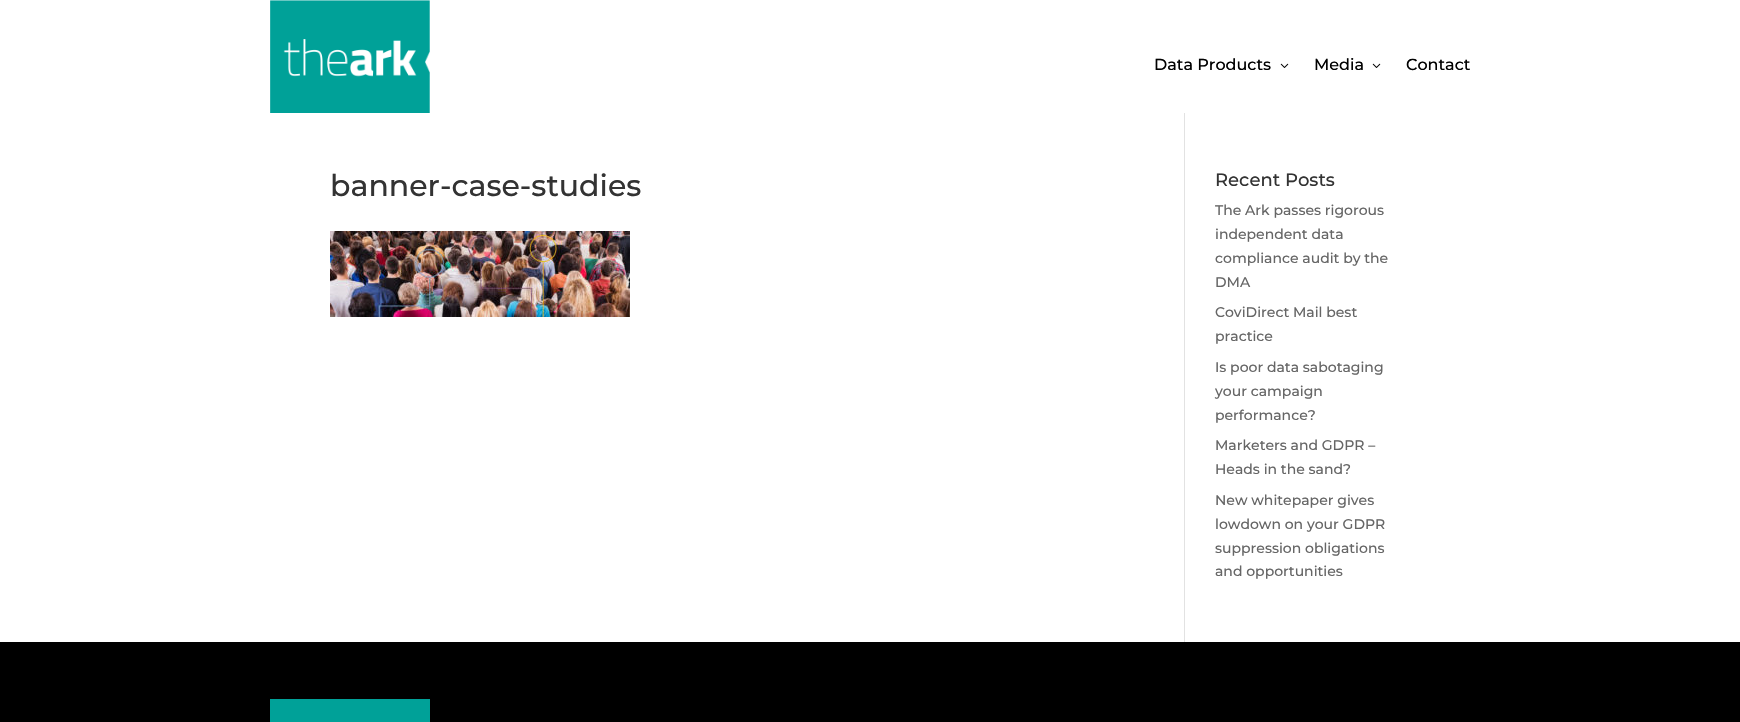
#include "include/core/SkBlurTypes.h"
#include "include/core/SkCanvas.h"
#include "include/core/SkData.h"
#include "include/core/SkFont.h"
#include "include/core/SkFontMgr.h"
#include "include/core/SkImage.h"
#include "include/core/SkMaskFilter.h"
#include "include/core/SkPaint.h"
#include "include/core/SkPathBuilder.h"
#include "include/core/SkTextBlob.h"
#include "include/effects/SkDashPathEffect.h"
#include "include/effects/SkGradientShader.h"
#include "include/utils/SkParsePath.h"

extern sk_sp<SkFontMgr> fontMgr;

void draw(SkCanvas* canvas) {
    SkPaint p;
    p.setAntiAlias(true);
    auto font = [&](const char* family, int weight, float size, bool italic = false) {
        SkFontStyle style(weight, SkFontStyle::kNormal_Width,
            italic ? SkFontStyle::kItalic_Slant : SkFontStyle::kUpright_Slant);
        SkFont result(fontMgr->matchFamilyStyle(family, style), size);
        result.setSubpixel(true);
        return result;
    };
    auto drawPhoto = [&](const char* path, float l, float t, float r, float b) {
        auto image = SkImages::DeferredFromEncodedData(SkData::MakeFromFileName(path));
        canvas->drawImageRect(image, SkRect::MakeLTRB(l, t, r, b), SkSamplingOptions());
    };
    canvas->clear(0xFFFFFFFF);
    drawPhoto("media/1.png", 270, 0, 430, 113);
    auto font1 = font("Montserrat", 100, 16);
    p.setColor(0xFF000000);
    canvas->drawString("Data Products", 1154, 70, font1, p);
    drawPhoto("media/2.png", 1280, 63, 1289, 68);
    canvas->drawString("Media", 1314, 70, font1, p);
    drawPhoto("media/2.png", 1372, 63, 1381, 68);
    canvas->drawString("Contact", 1406, 70, font1, p);
    p.setColor(0xFFE2E2E2);
    canvas->drawRect(SkRect::MakeLTRB(1184, 113, 1185, 642), p);
    auto font2 = font("Montserrat", 100, 30);
    p.setColor(0xFF333333);
    canvas->drawString("banner-case-studies", 330, 196, font2, p);
    drawPhoto("media/3.png", 330, 231, 630, 317);
    auto font3 = font("Montserrat", 100, 18);
    canvas->drawString("Recent Posts", 1215, 186, font3, p);
    auto font4 = font("Montserrat", 100, 14);
    p.setColor(0xFF666666);
    {
        const struct { const char* s; float x, y; } items[] = {
            {"The Ark passes rigorous", 1215, 215},
            {"independent data", 1215, 239},
            {"compliance audit by the", 1215, 263},
            {"DMA", 1215, 287},
            {"CoviDirect Mail best", 1215, 317},
            {"practice", 1215, 341},
            {"Is poor data sabotaging", 1215, 372},
            {"your campaign", 1215, 396},
            {"performance?", 1215, 420},
            {"Marketers and GDPR –", 1215, 450},
            {"Heads in the sand?", 1215, 474},
            {"New whitepaper gives", 1215, 505},
            {"lowdown on your GDPR", 1215, 529},
            {"suppression obligations", 1215, 553},
            {"and opportunities", 1215, 576},
        };
        for (auto [s, x, y] : items) {
            canvas->drawString(s, x, y, font4, p);
        }
    }
    p.setColor(0xFF000000);
    canvas->drawRect(SkRect::MakeLTRB(0, 642, 1740, 722), p);
    p.setColor(0xFF00A198);
    canvas->drawRect(SkRect::MakeLTRB(270, 699, 430, 722), p);
}
